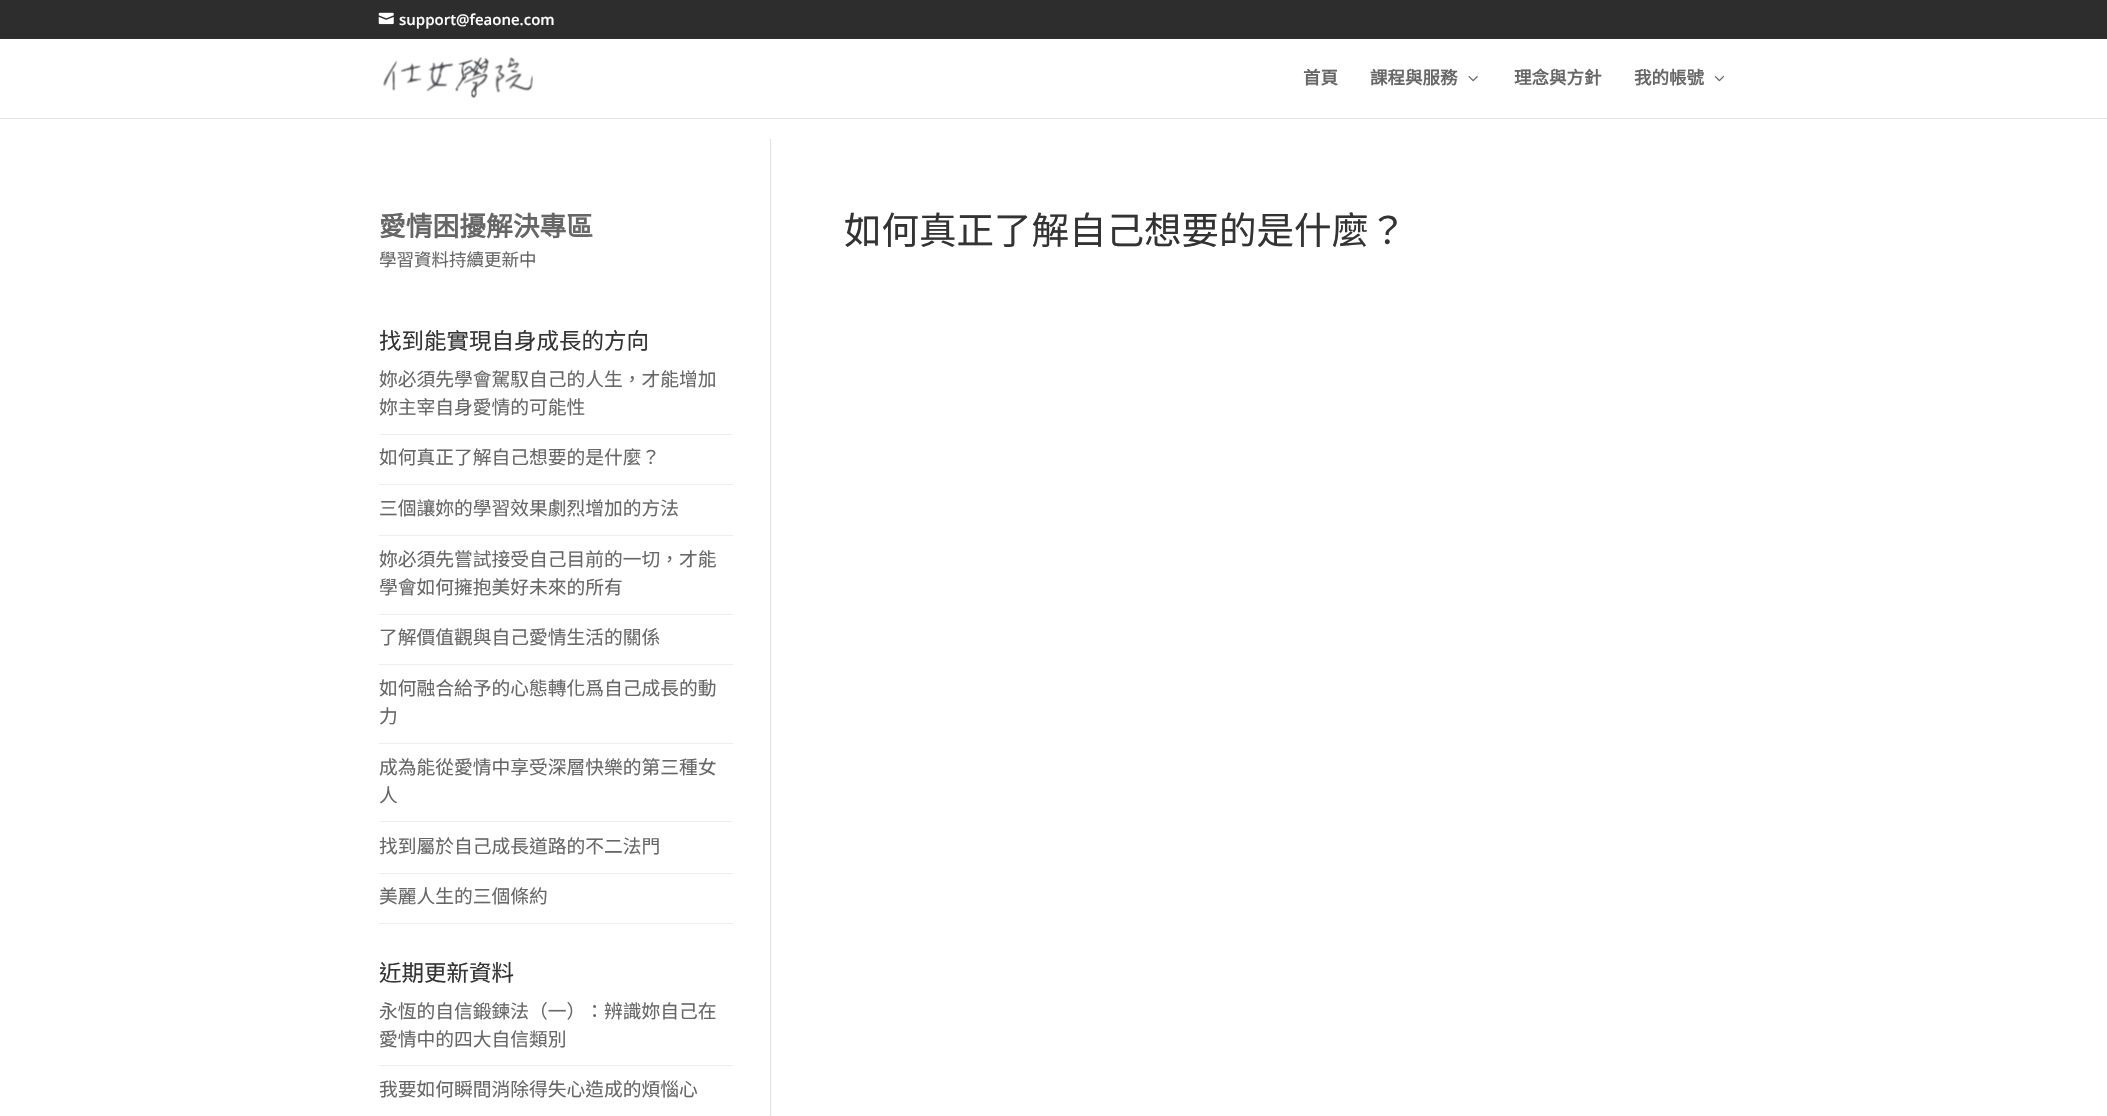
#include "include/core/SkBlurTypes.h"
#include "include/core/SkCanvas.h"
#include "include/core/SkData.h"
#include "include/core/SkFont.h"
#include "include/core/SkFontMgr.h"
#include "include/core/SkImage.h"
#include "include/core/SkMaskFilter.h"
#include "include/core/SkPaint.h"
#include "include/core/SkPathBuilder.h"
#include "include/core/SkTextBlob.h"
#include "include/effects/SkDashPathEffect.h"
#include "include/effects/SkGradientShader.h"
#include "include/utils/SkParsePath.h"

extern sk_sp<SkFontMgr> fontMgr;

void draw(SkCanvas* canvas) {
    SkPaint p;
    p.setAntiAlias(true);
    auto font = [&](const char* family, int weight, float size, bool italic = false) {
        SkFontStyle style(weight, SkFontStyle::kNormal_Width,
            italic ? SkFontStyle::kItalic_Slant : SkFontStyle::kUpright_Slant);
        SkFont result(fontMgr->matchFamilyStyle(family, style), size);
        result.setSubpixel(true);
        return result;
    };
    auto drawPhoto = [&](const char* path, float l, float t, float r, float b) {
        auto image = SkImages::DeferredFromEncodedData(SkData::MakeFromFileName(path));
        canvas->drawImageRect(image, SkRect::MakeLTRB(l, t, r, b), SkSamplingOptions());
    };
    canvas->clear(0xFFFFFFFF);
    p.setColor(0xFF2D2D2D);
    canvas->drawRect(SkRect::MakeLTRB(0, 0, 2107, 39), p);
    drawPhoto("media/1.png", 378, 12, 394, 25);
    auto font1 = font("Open Sans", 600, 15);
    p.setColor(0xFFFFFFFF);
    canvas->drawString("support@feaone.com", 399, 25, font1, p);
    p.setColor(0xFFE6E6E6);
    canvas->drawPath(SkPathBuilder().moveTo(0, 118).lineTo(0, 119).lineTo(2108, 119).lineTo(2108, 39).lineTo(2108, 118).close().detach(), p);
    drawPhoto("media/2.png", 383, 57, 533, 98);
    auto font2 = font("Noto Sans CJK TC", 700, 17.5f);
    p.setColor(0xFF666666);
    canvas->drawString("首頁", 1303, 84, font2, p);
    canvas->drawString("課程與服務", 1370, 84, font2, p);
    drawPhoto("media/3.png", 1468, 76, 1478, 82);
    canvas->drawString("理念與方針", 1514, 84, font2, p);
    canvas->drawString("我的帳號", 1634, 84, font2, p);
    drawPhoto("media/4.png", 1714, 76, 1724, 82);
    p.setColor(0xFFE2E2E2);
    canvas->drawRect(SkRect::MakeLTRB(770, 139, 771, 1116), p);
    auto font3 = font("Noto Sans CJK TC", 700, 26.75f);
    p.setColor(0xFF666666);
    canvas->drawString("愛情困擾解決專區", 379, 236, font3, p);
    auto font4 = font("Noto Sans CJK TC", 400, 17.5f);
    canvas->drawString("學習資料持續更新中", 379, 266, font4, p);
    auto font5 = font("Noto Sans CJK TC", 400, 22.5f);
    p.setColor(0xFF333333);
    canvas->drawString("找到能實現自身成長的方向", 379, 349, font5, p);
    p.setColor(0xFFEEEEEE);
    canvas->drawRect(SkRect::MakeLTRB(379, 434, 733, 435), p);
    auto font6 = font("Noto Sans CJK TC", 400, 18.75f);
    p.setColor(0xFF666666);
    canvas->drawString("妳必須先學會駕馭自己的人生，才能增加", 379, 386, font6, p);
    canvas->drawString("妳主宰自身愛情的可能性", 379, 414, font6, p);
    p.setColor(0xFFEEEEEE);
    canvas->drawRect(SkRect::MakeLTRB(379, 484, 733, 485), p);
    p.setColor(0xFF666666);
    canvas->drawString("如何真正了解自己想要的是什麼？", 379, 464, font6, p);
    p.setColor(0xFFEEEEEE);
    canvas->drawRect(SkRect::MakeLTRB(379, 535, 733, 536), p);
    p.setColor(0xFF666666);
    canvas->drawString("三個讓妳的學習效果劇烈增加的方法", 379, 515, font6, p);
    p.setColor(0xFFEEEEEE);
    canvas->drawRect(SkRect::MakeLTRB(379, 614, 733, 615), p);
    p.setColor(0xFF666666);
    canvas->drawString("妳必須先嘗試接受自己目前的一切，才能", 379, 566, font6, p);
    canvas->drawString("學會如何擁抱美好未來的所有", 379, 594, font6, p);
    p.setColor(0xFFEEEEEE);
    canvas->drawRect(SkRect::MakeLTRB(379, 664, 733, 665), p);
    p.setColor(0xFF666666);
    canvas->drawString("了解價值觀與自己愛情生活的關係", 379, 644, font6, p);
    p.setColor(0xFFEEEEEE);
    canvas->drawRect(SkRect::MakeLTRB(379, 743, 733, 744), p);
    p.setColor(0xFF666666);
    canvas->drawString("如何融合給予的心態轉化爲自己成長的動", 379, 695, font6, p);
    canvas->drawString("力", 379, 723, font6, p);
    p.setColor(0xFFEEEEEE);
    canvas->drawRect(SkRect::MakeLTRB(379, 821, 733, 822), p);
    p.setColor(0xFF666666);
    canvas->drawString("成為能從愛情中享受深層快樂的第三種女", 379, 774, font6, p);
    canvas->drawString("人", 379, 802, font6, p);
    p.setColor(0xFFEEEEEE);
    canvas->drawRect(SkRect::MakeLTRB(379, 873, 733, 874), p);
    p.setColor(0xFF666666);
    canvas->drawString("找到屬於自己成長道路的不二法門", 379, 853, font6, p);
    p.setColor(0xFFEEEEEE);
    canvas->drawRect(SkRect::MakeLTRB(379, 923, 733, 924), p);
    p.setColor(0xFF666666);
    canvas->drawString("美麗人生的三個條約", 379, 903, font6, p);
    p.setColor(0xFF333333);
    canvas->drawString("近期更新資料", 379, 981, font5, p);
    p.setColor(0xFFEEEEEE);
    canvas->drawRect(SkRect::MakeLTRB(379, 1065, 733, 1066), p);
    p.setColor(0xFF666666);
    {
        const struct { const char* s; float x, y; } items[] = {
            {"永恆的自信鍛鍊法（一）：辨識妳自己在", 379, 1018},
            {"愛情中的四大自信類別", 379, 1046},
            {"我要如何瞬間消除得失心造成的煩惱心", 379, 1096},
        };
        for (auto [s, x, y] : items) {
            canvas->drawString(s, x, y, font6, p);
        }
    }
    auto font7 = font("Noto Sans CJK TC", 400, 37.5f);
    p.setColor(0xFF333333);
    canvas->drawString("如何真正了解自己想要的是什麼？", 844, 244, font7, p);
}
